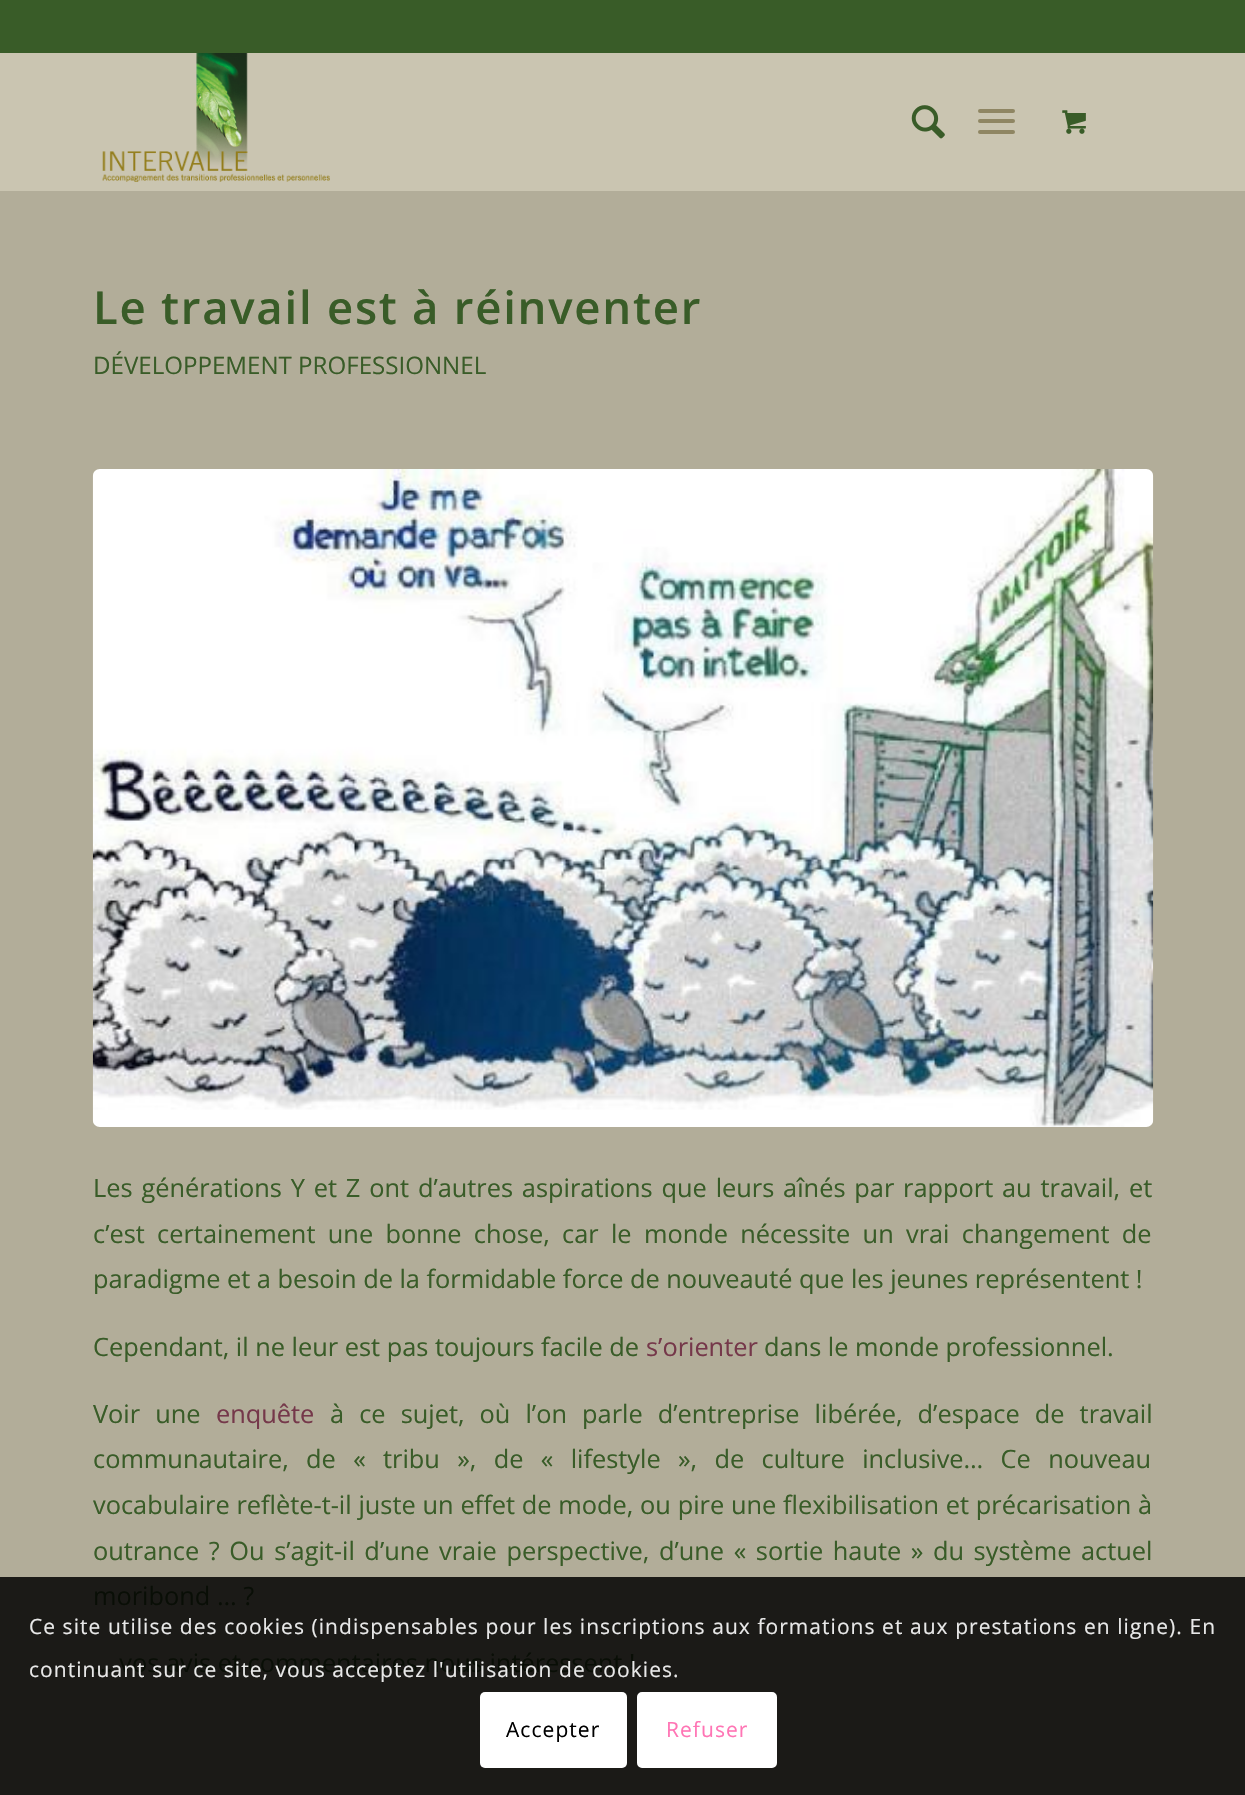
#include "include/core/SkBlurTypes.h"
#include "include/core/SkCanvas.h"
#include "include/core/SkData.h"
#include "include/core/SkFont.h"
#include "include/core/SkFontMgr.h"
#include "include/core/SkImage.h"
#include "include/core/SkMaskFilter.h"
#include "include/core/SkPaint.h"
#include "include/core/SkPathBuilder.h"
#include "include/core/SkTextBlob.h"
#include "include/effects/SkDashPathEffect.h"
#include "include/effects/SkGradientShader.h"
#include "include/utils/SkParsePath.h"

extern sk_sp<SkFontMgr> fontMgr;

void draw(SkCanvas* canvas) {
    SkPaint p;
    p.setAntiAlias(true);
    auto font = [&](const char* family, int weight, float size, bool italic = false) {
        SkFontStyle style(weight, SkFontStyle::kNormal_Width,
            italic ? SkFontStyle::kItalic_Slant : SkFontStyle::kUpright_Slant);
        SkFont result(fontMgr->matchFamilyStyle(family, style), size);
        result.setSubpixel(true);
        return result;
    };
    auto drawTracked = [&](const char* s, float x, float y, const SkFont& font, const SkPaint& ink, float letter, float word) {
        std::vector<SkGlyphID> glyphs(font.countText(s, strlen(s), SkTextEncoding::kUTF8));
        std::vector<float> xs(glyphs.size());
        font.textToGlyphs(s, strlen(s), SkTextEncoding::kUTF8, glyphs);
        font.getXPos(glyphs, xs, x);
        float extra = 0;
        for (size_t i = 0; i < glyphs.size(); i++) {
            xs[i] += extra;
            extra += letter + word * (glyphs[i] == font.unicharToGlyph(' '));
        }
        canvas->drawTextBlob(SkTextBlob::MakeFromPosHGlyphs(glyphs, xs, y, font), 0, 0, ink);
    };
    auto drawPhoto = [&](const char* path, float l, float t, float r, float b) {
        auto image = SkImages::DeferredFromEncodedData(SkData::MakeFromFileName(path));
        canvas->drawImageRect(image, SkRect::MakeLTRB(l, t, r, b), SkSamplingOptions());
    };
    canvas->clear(0xFFB2AD99);
    p.setColor(0xFF395C28);
    canvas->drawRect(SkRect::MakeLTRB(0, 0, 1245, 53), p);
    p.setColor(0xFFCAC5B1);
    canvas->drawRect(SkRect::MakeLTRB(0, 53, 1245, 191), p);
    drawPhoto("media/1.png", 102, 53, 330, 182);
    drawPhoto("media/2.png", 911, 105, 945, 139);
    p.setColor(0xFF8F8663);
    canvas->drawRoundRect(SkRect::MakeLTRB(978, 119, 1015, 123), 2, 2, p);
    canvas->drawRoundRect(SkRect::MakeLTRB(978, 109, 1015, 113), 2, 2, p);
    canvas->drawRoundRect(SkRect::MakeLTRB(978, 130, 1015, 134), 2, 2, p);
    drawPhoto("media/3.png", 1062, 110, 1086, 134);
    p.setColor(0xFF1B1A17);
    canvas->drawRect(SkRect::MakeLTRB(0, 1577, 1245, 1795), p);
    auto font1 = font("Open Sans", 600, 45.5f);
    p.setColor(0xFF395C28);
    drawTracked("Le travail est à réinventer", 93, 324, font1, p, 1.75f, 0);
    auto font2 = font("Open Sans", 400, 24.1f);
    canvas->drawString("DÉVELOPPEMENT PROFESSIONNEL", 93, 374, font2, p);
    drawPhoto("media/4.png", 92, 469, 1154, 1127);
    auto font3 = font("Open Sans", 400, 25.35f);
    drawTracked("Les générations Y et Z ont d’autres aspirations que leurs aînés par rapport au travail, et", 93, 1197, font3, p, 0, 2.25f);
    drawTracked("c’est certainement une bonne chose, car le monde nécessite un vrai changement de", 93, 1243, font3, p, 0, 5.75f);
    canvas->drawString("paradigme et a besoin de la formidable force de nouveauté que les jeunes représentent !", 93, 1288, font3, p);
    canvas->drawString("Cependant, il ne leur est pas toujours facile de", 93, 1356, font3, p);
    p.setColor(0xFF75384A);
    canvas->drawString("s’orienter", 646, 1356, font3, p);
    p.setColor(0xFF395C28);
    canvas->drawString("dans le monde professionnel.", 764, 1356, font3, p);
    drawTracked("Voir une", 93, 1423, font3, p, 0, 8.5f);
    p.setColor(0xFF75384A);
    canvas->drawString("enquête", 216, 1423, font3, p);
    p.setColor(0xFF395C28);
    drawTracked("à ce sujet, où l’on parle d’entreprise libérée, d’espace de travail", 330, 1423, font3, p, 0, 8.5f);
    drawTracked("communautaire, de « tribu », de « lifestyle », de culture inclusive… Ce nouveau", 93, 1468, font3, p, 0, 10.75f);
    drawTracked("vocabulaire reflète-t-il juste un effet de mode, ou pire une flexibilisation et précarisation à", 93, 1514, font3, p, 0, 0.2f);
    drawTracked("outrance ? Ou s’agit-il d’une vraie perspective, d’une « sortie haute » du système actuel", 93, 1560, font3, p, 0, 3);
    p.setColor(0xFF090E06);
    canvas->drawString("moribond … ?", 93, 1605, font3, p);
    canvas->drawString("… vos avis et commentaires nous intéressent !", 93, 1672, font3, p);
    auto font4 = font("Open Sans", 400, 21);
    p.setColor(0xFFE8E8E8);
    drawTracked("Ce site utilise des cookies (indispensables pour les inscriptions aux formations et aux prestations en ligne). En", 29, 1634, font4, p, 1.05f, 0);
    drawTracked("continuant sur ce site, vous acceptez l'utilisation de cookies.", 29, 1677, font4, p, 1.05f, 0);
    p.setColor(0xFFFFFFFF);
    canvas->drawRoundRect(SkRect::MakeLTRB(480, 1692, 627, 1768), 5, 5, p);
    p.setColor(0xFF000000);
    drawTracked("Accepter", 506, 1737, font4, p, 1.05f, 0);
    p.setColor(0xFFFFFFFF);
    canvas->drawRoundRect(SkRect::MakeLTRB(639, 1694, 775, 1766), 3, 3, p);
    p.setStyle(SkPaint::kStroke_Style);
    p.setStrokeWidth(4);
    canvas->drawRoundRect(SkRect::MakeLTRB(639, 1694, 775, 1766), 3, 3, p);
    p.setStyle(SkPaint::kFill_Style);
    p.setColor(0xFFFF75B5);
    drawTracked("Refuser", 666, 1737, font4, p, 1.05f, 0);
}
